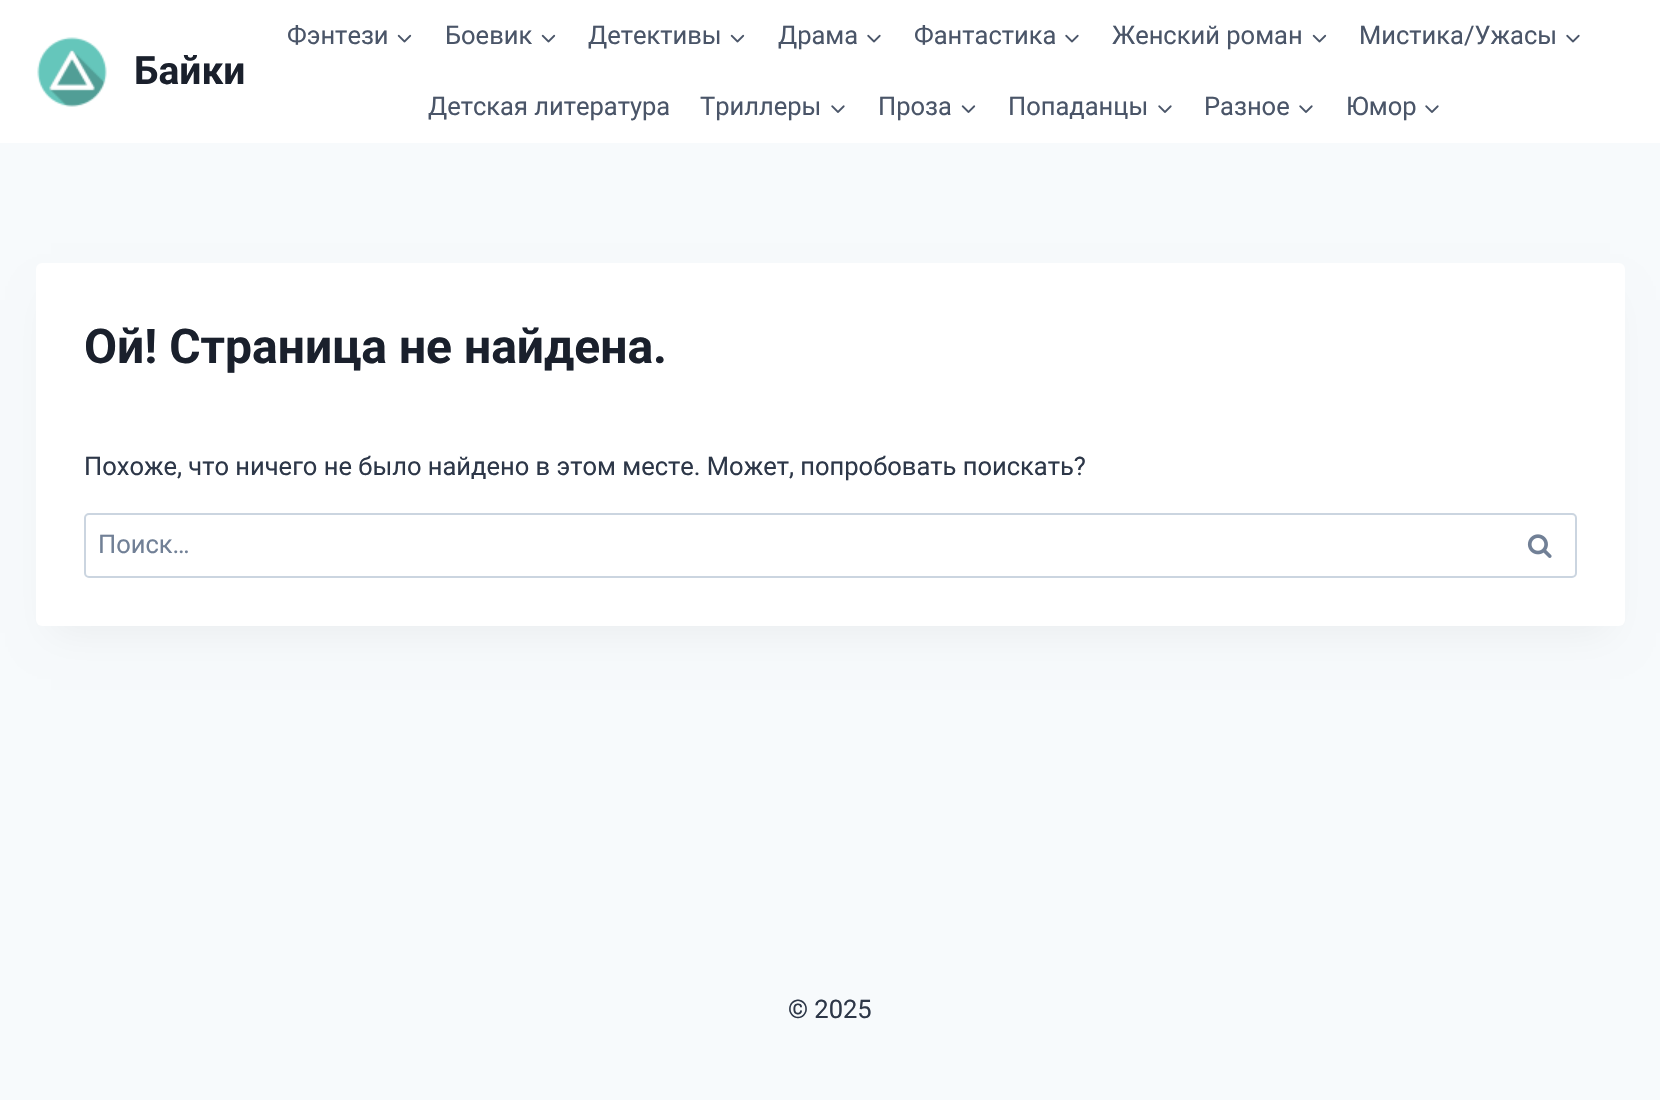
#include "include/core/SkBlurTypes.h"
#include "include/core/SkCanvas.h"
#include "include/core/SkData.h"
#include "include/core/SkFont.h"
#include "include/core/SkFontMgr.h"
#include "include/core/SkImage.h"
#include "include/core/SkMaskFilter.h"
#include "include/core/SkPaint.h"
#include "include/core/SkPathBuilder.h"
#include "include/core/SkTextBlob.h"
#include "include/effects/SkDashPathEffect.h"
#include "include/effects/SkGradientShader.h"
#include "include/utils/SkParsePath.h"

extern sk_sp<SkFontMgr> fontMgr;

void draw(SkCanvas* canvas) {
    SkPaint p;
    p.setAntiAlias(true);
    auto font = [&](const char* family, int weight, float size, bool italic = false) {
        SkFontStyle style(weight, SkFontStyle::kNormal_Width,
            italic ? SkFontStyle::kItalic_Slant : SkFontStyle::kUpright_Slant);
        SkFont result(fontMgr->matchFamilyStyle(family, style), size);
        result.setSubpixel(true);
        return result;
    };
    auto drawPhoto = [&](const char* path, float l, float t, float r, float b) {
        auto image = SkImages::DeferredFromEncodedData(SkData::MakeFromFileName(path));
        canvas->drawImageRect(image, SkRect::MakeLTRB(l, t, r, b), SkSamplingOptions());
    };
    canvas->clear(0xFFF7FAFC);
    p.setColor(0xFFFFFFFF);
    canvas->drawRect(SkRect::MakeLTRB(0, 0, 1660, 143), p);
    drawPhoto("media/1.png", 37, 37, 107, 107);
    auto font1 = font("Roboto", 700, 39);
    p.setColor(0xFF1A202C);
    canvas->drawString("Байки", 134, 84, font1, p);
    auto font2 = font("Roboto", 400, 25.5f);
    p.setColor(0xFF4A5568);
    canvas->drawString("Фэнтези", 287, 44, font2, p);
    drawPhoto("media/2.png", 397, 34, 412, 43);
    canvas->drawString("Боевик", 445, 44, font2, p);
    drawPhoto("media/2.png", 541, 34, 556, 43);
    canvas->drawString("Детективы", 588, 44, font2, p);
    drawPhoto("media/2.png", 730, 34, 745, 43);
    canvas->drawString("Драма", 778, 44, font2, p);
    drawPhoto("media/3.png", 867, 34, 881, 43);
    canvas->drawString("Фантастика", 914, 44, font2, p);
    drawPhoto("media/3.png", 1065, 34, 1079, 43);
    canvas->drawString("Женский роман", 1112, 44, font2, p);
    drawPhoto("media/2.png", 1312, 34, 1327, 43);
    canvas->drawString("Мистика/Ужасы", 1359, 44, font2, p);
    drawPhoto("media/3.png", 1566, 34, 1580, 43);
    canvas->drawString("Детская литература", 428, 115, font2, p);
    canvas->drawString("Триллеры", 700, 115, font2, p);
    drawPhoto("media/4.png", 831, 105, 845, 113);
    canvas->drawString("Проза", 878, 115, font2, p);
    drawPhoto("media/5.png", 961, 105, 976, 113);
    canvas->drawString("Попаданцы", 1008, 115, font2, p);
    drawPhoto("media/4.png", 1158, 105, 1172, 113);
    canvas->drawString("Разное", 1204, 115, font2, p);
    drawPhoto("media/4.png", 1299, 105, 1313, 113);
    canvas->drawString("Юмор", 1346, 115, font2, p);
    drawPhoto("media/4.png", 1425, 105, 1439, 113);
    p.setColor(0x0D000000);
    p.setMaskFilter(SkMaskFilter::MakeBlur(kNormal_SkBlurStyle, 19));
    canvas->drawRect(SkRect::MakeLTRB(51, 300, 1610, 633), p);
    p.setMaskFilter(nullptr);
    p.setColor(0xFFFFFFFF);
    canvas->drawRoundRect(SkRect::MakeLTRB(36, 263, 1625, 626), 6, 6, p);
    auto font3 = font("Roboto", 700, 48);
    p.setColor(0xFF1A202C);
    canvas->drawString("Ой! Страница не найдена.", 84, 363, font3, p);
    p.setColor(0xFF2D3748);
    canvas->drawString("Похоже, что ничего не было найдено в этом месте. Может, попробовать поискать?", 84, 475, font2, p);
    p.setStyle(SkPaint::kStroke_Style);
    p.setStrokeWidth(2);
    p.setColor(0xFFCBD5E0);
    canvas->drawRoundRect(SkRect::MakeLTRB(85, 514, 1576, 577), 4, 4, p);
    p.setStyle(SkPaint::kFill_Style);
    p.setColor(0xFF718096);
    canvas->drawString("Поиск…", 98, 553, font2, p);
    drawPhoto("media/6.png", 1527, 534, 1552, 558);
    p.setColor(0xFF2D3748);
    canvas->drawString("© 2025", 788, 1018, font2, p);
}
